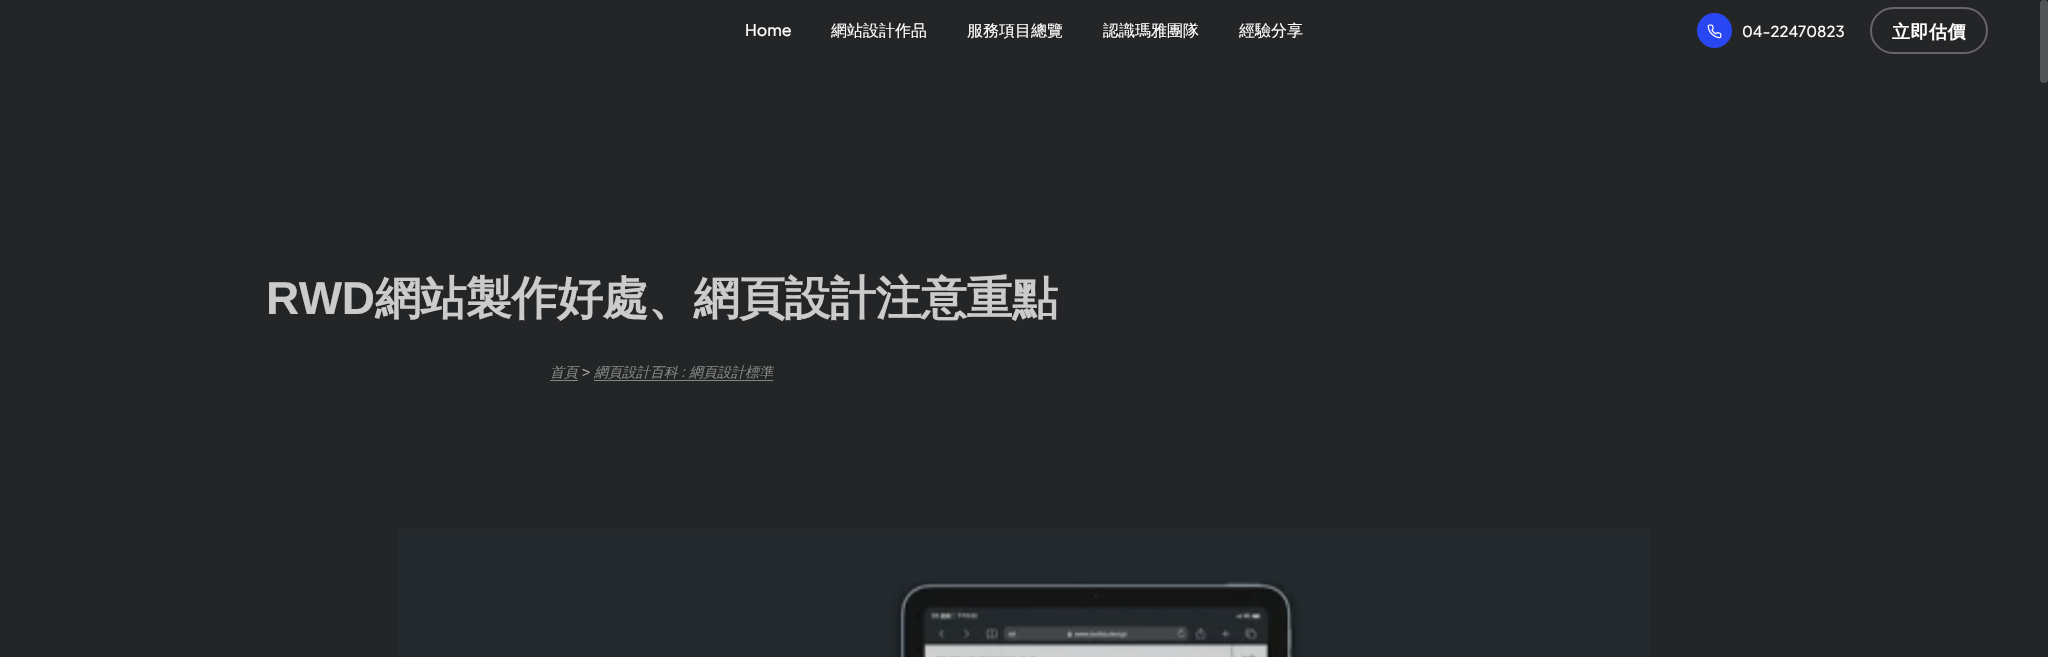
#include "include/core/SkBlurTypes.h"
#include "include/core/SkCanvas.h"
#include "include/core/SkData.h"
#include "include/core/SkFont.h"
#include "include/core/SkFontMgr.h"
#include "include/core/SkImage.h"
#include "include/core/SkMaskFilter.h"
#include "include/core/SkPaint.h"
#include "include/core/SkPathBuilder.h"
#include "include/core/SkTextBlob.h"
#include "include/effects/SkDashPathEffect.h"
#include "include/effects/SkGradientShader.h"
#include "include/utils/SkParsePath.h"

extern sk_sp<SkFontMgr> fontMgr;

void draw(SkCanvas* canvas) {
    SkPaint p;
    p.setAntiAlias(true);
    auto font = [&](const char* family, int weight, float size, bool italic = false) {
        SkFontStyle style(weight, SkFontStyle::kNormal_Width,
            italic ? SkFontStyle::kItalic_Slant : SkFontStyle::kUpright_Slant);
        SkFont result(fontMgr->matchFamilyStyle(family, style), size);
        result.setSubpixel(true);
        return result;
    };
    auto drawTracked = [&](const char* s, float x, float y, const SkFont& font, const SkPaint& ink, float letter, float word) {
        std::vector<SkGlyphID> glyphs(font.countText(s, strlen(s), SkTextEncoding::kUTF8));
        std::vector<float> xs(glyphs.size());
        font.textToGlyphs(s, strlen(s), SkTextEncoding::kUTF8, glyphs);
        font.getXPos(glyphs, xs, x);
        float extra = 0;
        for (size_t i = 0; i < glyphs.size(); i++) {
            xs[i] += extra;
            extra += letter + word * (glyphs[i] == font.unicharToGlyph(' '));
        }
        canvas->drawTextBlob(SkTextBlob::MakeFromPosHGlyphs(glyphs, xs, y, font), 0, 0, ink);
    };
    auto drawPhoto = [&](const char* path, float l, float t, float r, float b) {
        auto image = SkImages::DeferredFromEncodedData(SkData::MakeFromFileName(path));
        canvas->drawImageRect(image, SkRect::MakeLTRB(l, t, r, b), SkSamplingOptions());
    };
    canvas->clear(0xFF242527);
    auto font1 = font("Plus Jakarta Sans", 500, 16);
    p.setColor(0xFFFFFFFF);
    canvas->drawString("Home", 745, 36, font1, p);
    auto font2 = font("WenQuanYi Zen Hei", 500, 16);
    {
        const struct { const char* s; float x, y; } items[] = {
            {"網站設計作品", 831, 36},
            {"服務項目總覽", 967, 36},
            {"認識瑪雅團隊", 1103, 36},
            {"經驗分享", 1239, 36},
        };
        for (auto [s, x, y] : items) {
            canvas->drawString(s, x, y, font2, p);
        }
    }
    p.setColor(0xFF2946F3);
    canvas->drawCircle(1714.5f, 30.5f, 17.5f, p);
    drawPhoto("media/1.png", 1707, 24, 1722, 39);
    auto font3 = font("Plus Jakarta Sans", 500, 15);
    p.setColor(0xFFFFFFFF);
    canvas->drawString("04-22470823", 1742, 37, font3, p);
    p.setStyle(SkPaint::kStroke_Style);
    p.setStrokeWidth(2);
    p.setColor(0xFF666668);
    canvas->drawRoundRect(SkRect::MakeLTRB(1871, 8, 1987, 53), 22.5f, 22.5f, p);
    auto font4 = font("WenQuanYi Zen Hei", 700, 18);
    p.setStyle(SkPaint::kFill_Style);
    p.setColor(0xFFFFFFFF);
    drawTracked("立即估價", 1892, 38, font4, p, 0.5f, 0);
    auto font5 = font("Liberation Sans", 700, 46);
    p.setColor(0xFFCBCBCB);
    drawTracked("RWD", 266, 314, font5, p, -0.5f, 0);
    auto font6 = font("WenQuanYi Zen Hei", 700, 46);
    drawTracked("網站製作好處、網頁設計注意重點", 375, 314, font6, p, -0.5f, 0);
    auto font7 = font("WenQuanYi Zen Hei", 500, 14, true);
    p.setColor(0xFF858686);
    canvas->drawString("首頁", 550, 377, font7, p);
    canvas->drawRect(SkRect::MakeLTRB(550, 380, 578, 381), p);
    auto font8 = font("Liberation Sans", 400, 14);
    p.setColor(0xFFAFAFAF);
    canvas->drawString(">", 582, 377, font8, p);
    p.setColor(0xFF858686);
    canvas->drawString("網頁設計百科", 594, 377, font7, p);
    auto font9 = font("Liberation Sans", 400, 14, true);
    canvas->drawString(":", 682, 377, font9, p);
    canvas->drawRect(SkRect::MakeLTRB(594, 380, 773, 381), p);
    canvas->drawString("網頁設計標準", 689, 377, font7, p);
    drawPhoto("media/2.png", 398, 529, 1650, 657);
    p.setColor(0xFF525355);
    canvas->drawRoundRect(SkRect::MakeLTRB(2040, 0, 2048, 83), 4, 4, p);
}
